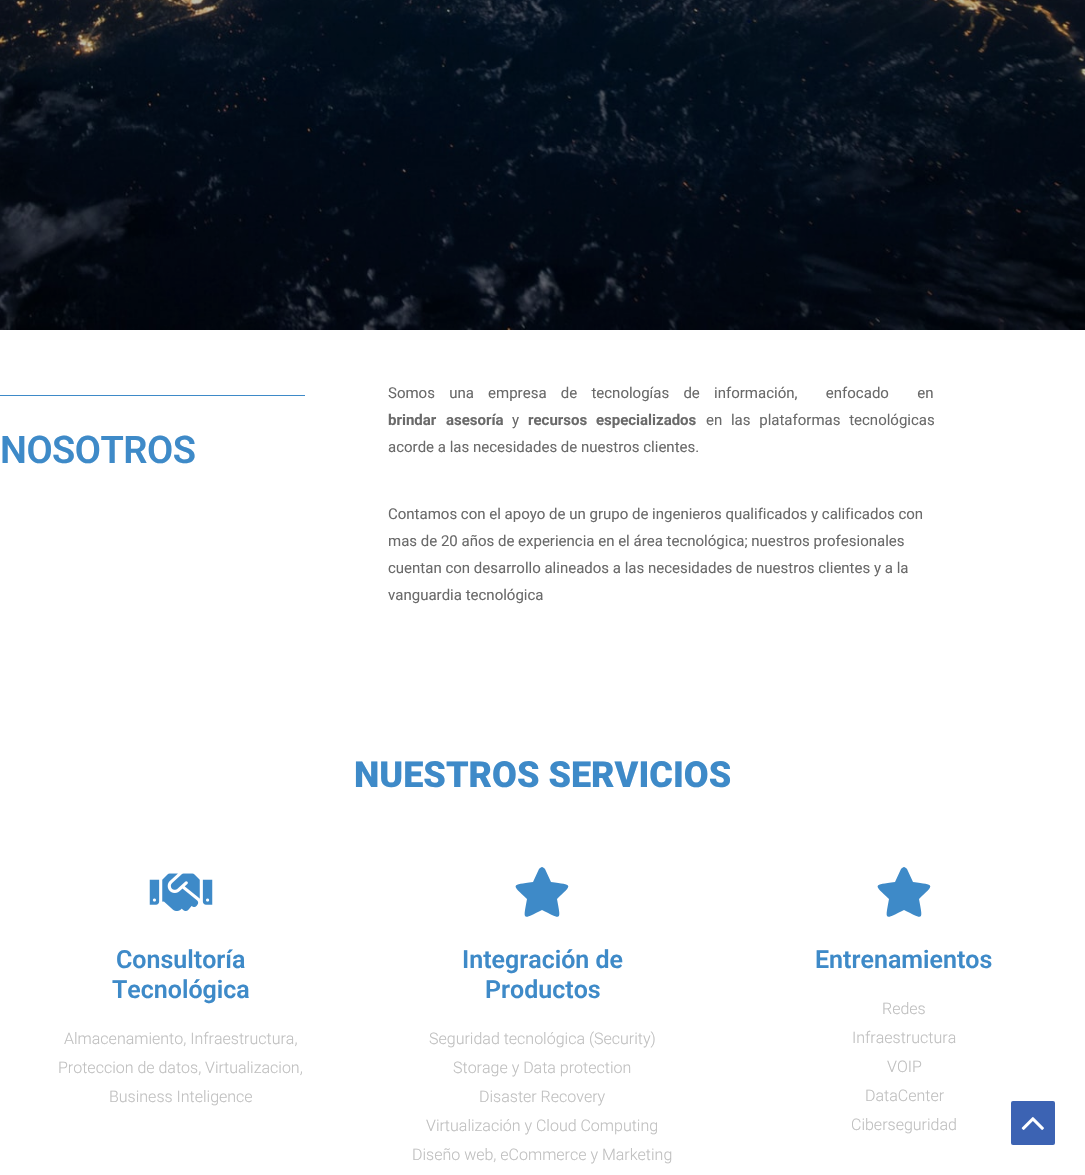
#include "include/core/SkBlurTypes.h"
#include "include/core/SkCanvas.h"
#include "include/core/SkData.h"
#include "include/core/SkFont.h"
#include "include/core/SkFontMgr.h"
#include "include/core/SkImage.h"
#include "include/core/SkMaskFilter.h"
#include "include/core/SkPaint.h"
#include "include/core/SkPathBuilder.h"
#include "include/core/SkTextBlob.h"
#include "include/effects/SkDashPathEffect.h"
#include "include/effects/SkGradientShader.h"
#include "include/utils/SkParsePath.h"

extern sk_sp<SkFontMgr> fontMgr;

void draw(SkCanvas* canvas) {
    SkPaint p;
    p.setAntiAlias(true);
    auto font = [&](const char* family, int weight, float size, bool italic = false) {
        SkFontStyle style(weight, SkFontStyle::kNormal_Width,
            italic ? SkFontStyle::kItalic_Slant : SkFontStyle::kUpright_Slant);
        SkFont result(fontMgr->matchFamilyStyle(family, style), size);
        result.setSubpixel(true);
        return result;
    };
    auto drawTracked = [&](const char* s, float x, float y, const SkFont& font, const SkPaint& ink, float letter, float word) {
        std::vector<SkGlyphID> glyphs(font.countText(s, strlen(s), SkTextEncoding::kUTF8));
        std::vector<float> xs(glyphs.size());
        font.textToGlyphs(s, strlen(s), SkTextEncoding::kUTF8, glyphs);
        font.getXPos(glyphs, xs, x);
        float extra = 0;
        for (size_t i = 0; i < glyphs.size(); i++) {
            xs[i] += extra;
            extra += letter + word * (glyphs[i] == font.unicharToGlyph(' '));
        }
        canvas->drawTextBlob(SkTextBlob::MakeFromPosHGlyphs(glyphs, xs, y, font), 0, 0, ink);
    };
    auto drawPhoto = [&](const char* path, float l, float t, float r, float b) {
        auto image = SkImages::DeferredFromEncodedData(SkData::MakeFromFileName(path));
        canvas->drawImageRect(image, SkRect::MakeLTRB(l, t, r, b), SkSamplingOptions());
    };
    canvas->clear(0xFFFFFFFF);
    drawPhoto("media/1.png", 0, 0, 1085, 330);
    p.setColor(0xFF3E8AC8);
    canvas->drawRect(SkRect::MakeLTRB(0, 395, 305, 396), p);
    auto font1 = font("Roboto", 600, 38);
    drawTracked("NOSOTROS", 0, 463, font1, p, -0.5f, 0);
    auto font2 = font("Roboto", 400, 15);
    p.setColor(0xFF6A6A6A);
    drawTracked("Somos una empresa de tecnologías de información,  enfocado  en", 388, 398, font2, p, 0, 10.5f);
    auto font3 = font("Roboto", 700, 15);
    canvas->drawString("brindar", 388, 425, font3, p);
    canvas->drawString("asesoría", 446, 425, font3, p);
    canvas->drawString("y", 512, 425, font2, p);
    drawTracked("recursos especializados", 528, 425, font3, p, 0, 5);
    drawTracked("en las plataformas tecnológicas", 706, 425, font2, p, 0, 5);
    {
        const struct { const char* s; float x, y; } items[] = {
            {"acorde a las necesidades de nuestros clientes.", 388, 452},
            {"Contamos con el apoyo de un grupo de ingenieros qualificados y calificados con", 388, 519},
            {"mas de 20 años de experiencia en el área tecnológica; nuestros profesionales", 388, 546},
            {"cuentan con desarrollo alineados a las necesidades de nuestros clientes y a la", 388, 573},
            {"vanguardia tecnológica", 388, 600},
        };
        for (auto [s, x, y] : items) {
            canvas->drawString(s, x, y, font2, p);
        }
    }
    auto font4 = font("Roboto", 900, 36);
    p.setColor(0xFF3E8AC8);
    canvas->drawString("NUESTROS SERVICIOS", 354, 787, font4, p);
    drawPhoto("media/2.png", 149, 873, 213, 911);
    auto font5 = font("Roboto", 600, 25);
    canvas->drawString("Consultoría", 116, 968, font5, p);
    canvas->drawString("Tecnológica", 112, 998, font5, p);
    auto font6 = font("Roboto", 300, 16);
    p.setColor(0xFFBFBFBF);
    {
        const struct { const char* s; float x, y; } items[] = {
            {"Almacenamiento, Infraestructura,", 64, 1044},
            {"Proteccion de datos, Virtualizacion,", 58, 1073},
            {"Business Inteligence", 109, 1102},
        };
        for (auto [s, x, y] : items) {
            canvas->drawString(s, x, y, font6, p);
        }
    }
    p.setColor(0xFF3E8AC8);
    canvas->drawPath(SkPathBuilder().moveTo(539, 869).cubicTo(540, 868, 541, 867, 542, 867).cubicTo(543, 867, 544, 868, 545, 869).lineTo(551, 882).cubicTo(573, 885, 573, 884, 557, 899).cubicTo(561, 921, 562, 920, 542, 910).cubicTo(522, 920, 523, 921, 527, 899).cubicTo(511, 884, 511, 885, 533, 882).close().detach(), p);
    canvas->drawString("Integración de", 462, 968, font5, p);
    canvas->drawString("Productos", 485, 998, font5, p);
    p.setColor(0xFFBFBFBF);
    {
        const struct { const char* s; float x, y; } items[] = {
            {"Seguridad tecnológica (Security)", 429, 1044},
            {"Storage y Data protection", 453, 1073},
            {"Disaster Recovery", 479, 1102},
            {"Virtualización y Cloud Computing", 426, 1131},
            {"Diseño web, eCommerce y Marketing", 412, 1160},
        };
        for (auto [s, x, y] : items) {
            canvas->drawString(s, x, y, font6, p);
        }
    }
    p.setColor(0xFF3E8AC8);
    canvas->drawPath(SkPathBuilder().moveTo(901, 869).cubicTo(902, 868, 903, 867, 904, 867).cubicTo(905, 867, 906, 868, 907, 869).lineTo(913, 882).cubicTo(935, 885, 935, 884, 919, 899).cubicTo(923, 921, 924, 920, 904, 910).cubicTo(884, 920, 885, 921, 889, 899).cubicTo(873, 884, 873, 885, 895, 882).close().detach(), p);
    canvas->drawString("Entrenamientos", 815, 968, font5, p);
    p.setColor(0xFFBFBFBF);
    {
        const struct { const char* s; float x, y; } items[] = {
            {"Redes", 882, 1014},
            {"Infraestructura", 852, 1043},
            {"VOIP", 887, 1072},
            {"DataCenter", 865, 1101},
            {"Ciberseguridad", 851, 1130},
        };
        for (auto [s, x, y] : items) {
            canvas->drawString(s, x, y, font6, p);
        }
    }
    p.setColor(0xFF3C63B3);
    canvas->drawRoundRect(SkRect::MakeLTRB(1011, 1101, 1055, 1145), 2, 2, p);
    drawPhoto("media/3.png", 1021, 1117, 1044, 1130);
}
